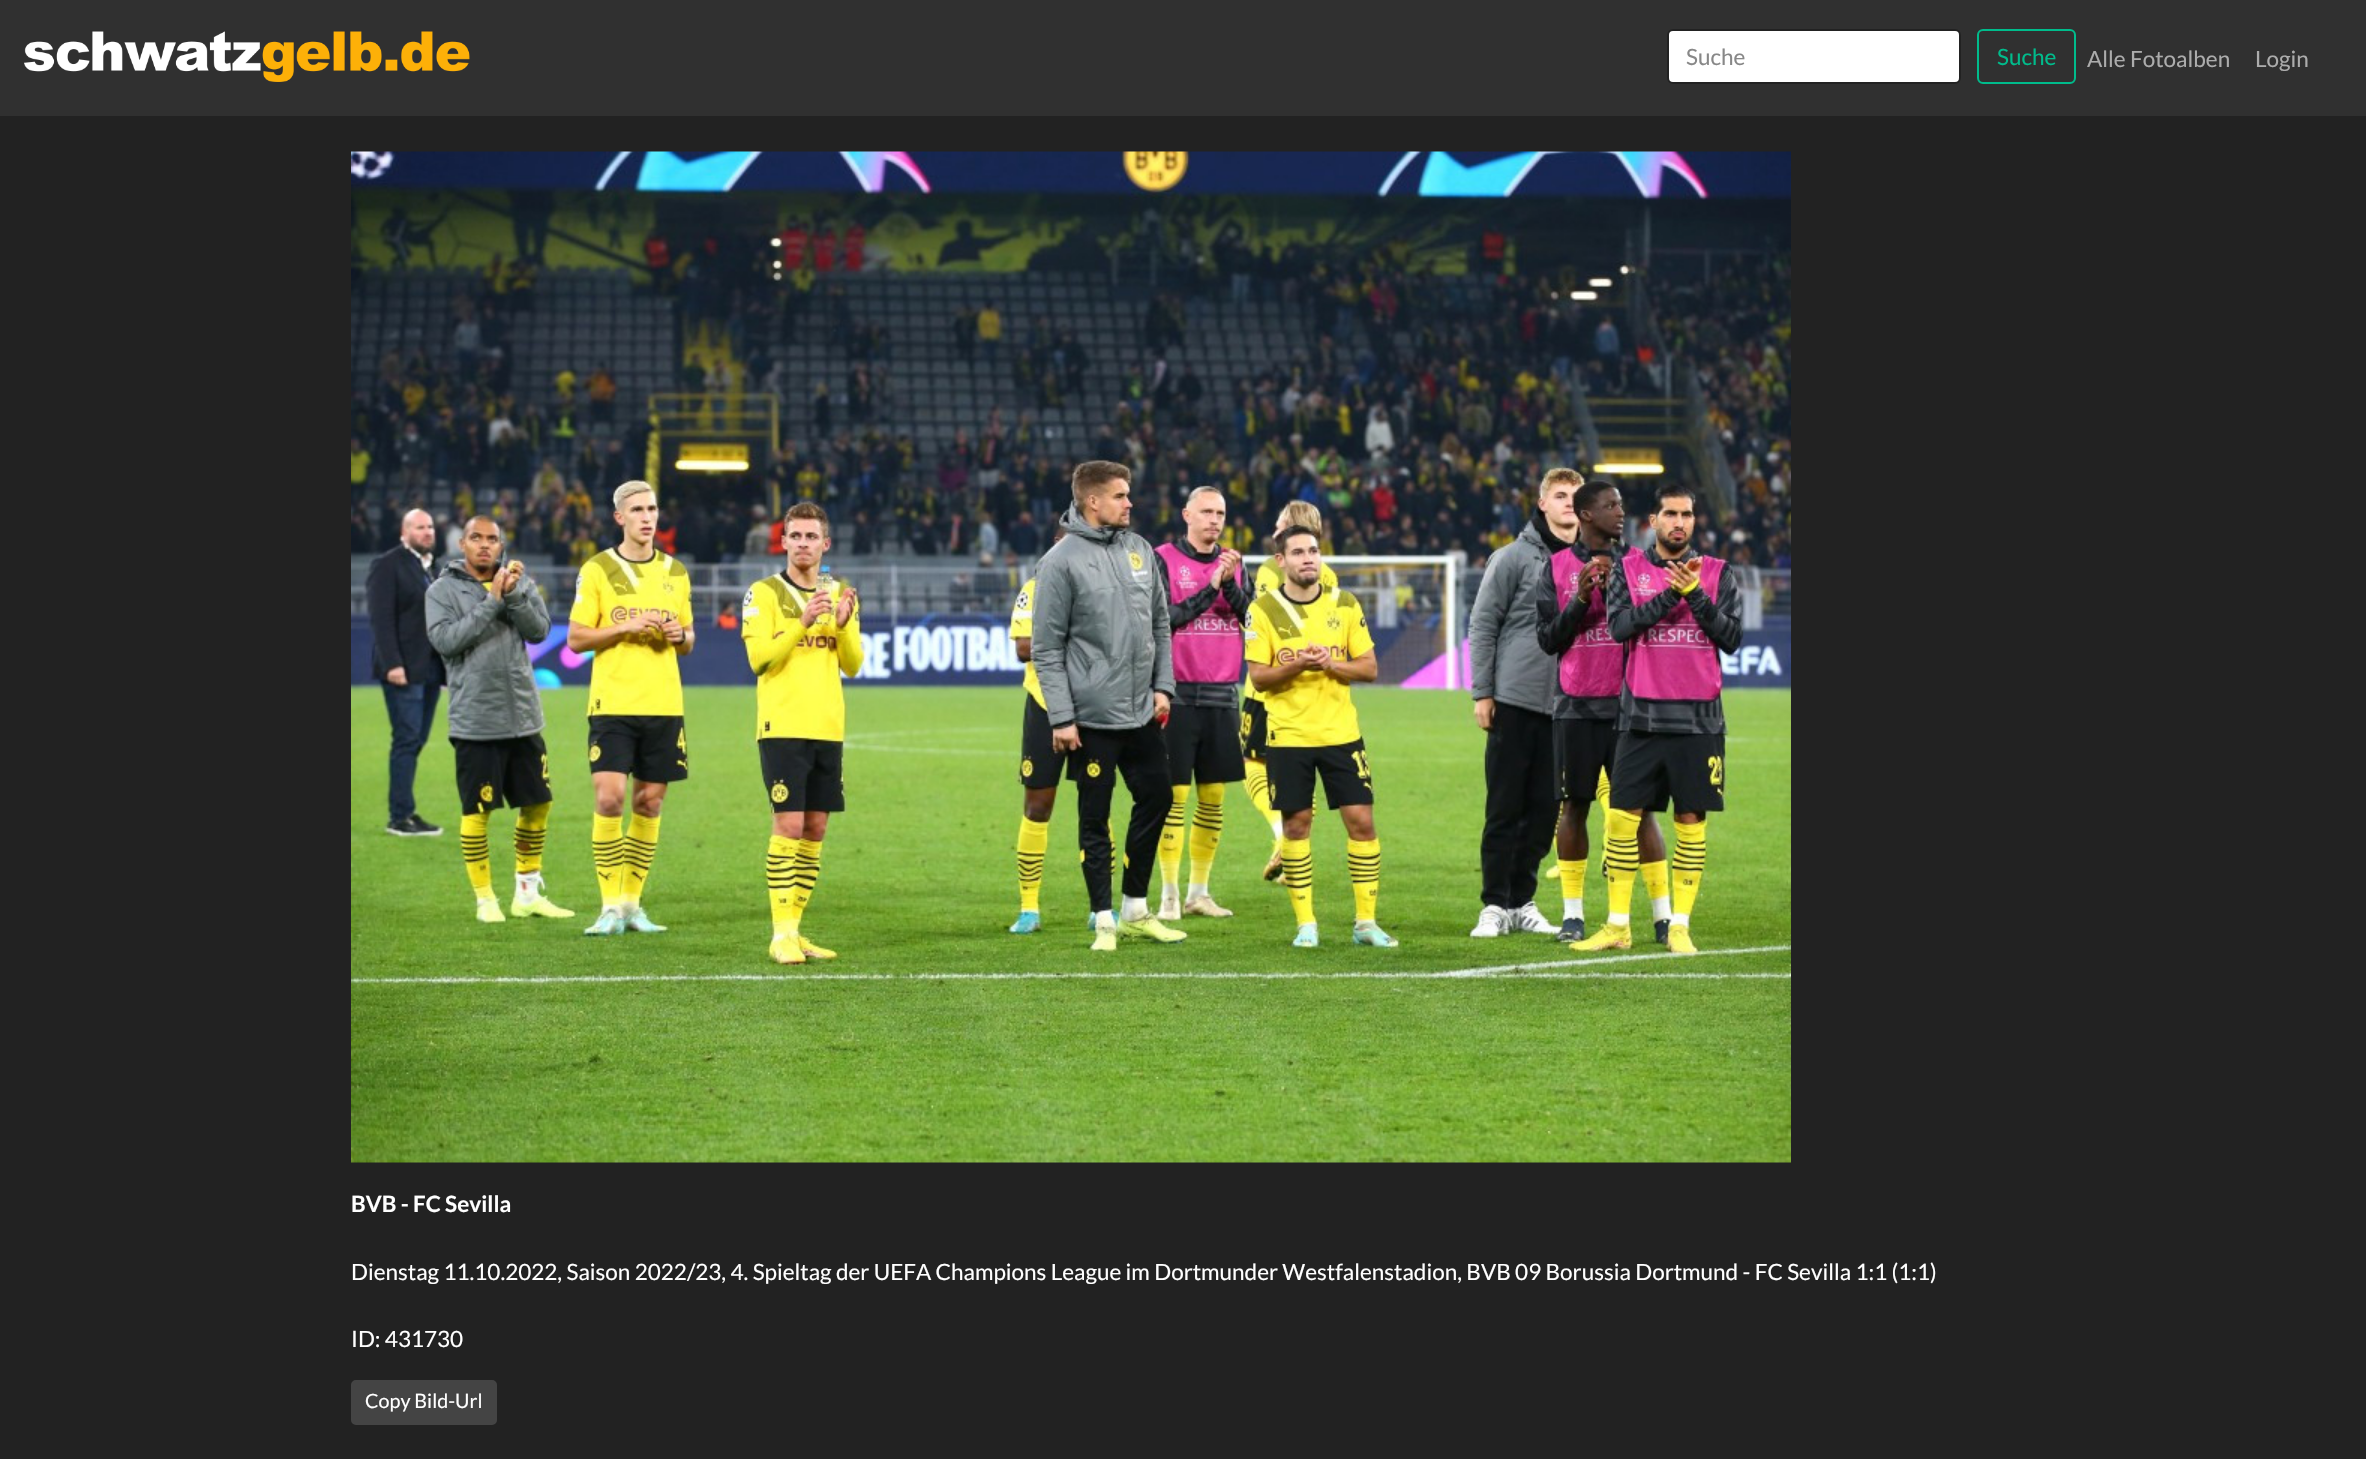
#include "include/core/SkBlurTypes.h"
#include "include/core/SkCanvas.h"
#include "include/core/SkData.h"
#include "include/core/SkFont.h"
#include "include/core/SkFontMgr.h"
#include "include/core/SkImage.h"
#include "include/core/SkMaskFilter.h"
#include "include/core/SkPaint.h"
#include "include/core/SkPathBuilder.h"
#include "include/core/SkTextBlob.h"
#include "include/effects/SkDashPathEffect.h"
#include "include/effects/SkGradientShader.h"
#include "include/utils/SkParsePath.h"

extern sk_sp<SkFontMgr> fontMgr;

void draw(SkCanvas* canvas) {
    SkPaint p;
    p.setAntiAlias(true);
    auto font = [&](const char* family, int weight, float size, bool italic = false) {
        SkFontStyle style(weight, SkFontStyle::kNormal_Width,
            italic ? SkFontStyle::kItalic_Slant : SkFontStyle::kUpright_Slant);
        SkFont result(fontMgr->matchFamilyStyle(family, style), size);
        result.setSubpixel(true);
        return result;
    };
    auto drawPhoto = [&](const char* path, float l, float t, float r, float b) {
        auto image = SkImages::DeferredFromEncodedData(SkData::MakeFromFileName(path));
        canvas->drawImageRect(image, SkRect::MakeLTRB(l, t, r, b), SkSamplingOptions());
    };
    canvas->clear(0xFF222222);
    p.setColor(0xFF303030);
    canvas->drawRect(SkRect::MakeLTRB(0, 0, 2366, 116), p);
    drawPhoto("media/1.png", 24, 31, 470, 82);
    p.setColor(0xFFFFFFFF);
    canvas->drawRoundRect(SkRect::MakeLTRB(1668, 30, 1960, 83), 5, 5, p);
    p.setStyle(SkPaint::kStroke_Style);
    p.setStrokeWidth(2);
    p.setColor(0xFF222222);
    canvas->drawRoundRect(SkRect::MakeLTRB(1668, 30, 1960, 83), 5, 5, p);
    auto font1 = font("Lato", 400, 22.5f);
    p.setStyle(SkPaint::kFill_Style);
    p.setColor(0xFF888888);
    canvas->drawString("Suche", 1686, 65, font1, p);
    p.setStyle(SkPaint::kStroke_Style);
    p.setColor(0xFF00BC8C);
    canvas->drawRoundRect(SkRect::MakeLTRB(1978, 30, 2075, 83), 5, 5, p);
    p.setStyle(SkPaint::kFill_Style);
    canvas->drawString("Suche", 1997, 65, font1, p);
    p.setColor(0xFFACACAC);
    canvas->drawString("Alle Fotoalben", 2087, 67, font1, p);
    canvas->drawString("Login", 2255, 67, font1, p);
    drawPhoto("media/2.png", 351, 151, 1791, 1163);
    auto font2 = font("Lato", 700, 22.5f);
    p.setColor(0xFFFFFFFF);
    canvas->drawString("BVB - FC Sevilla", 351, 1212, font2, p);
    canvas->drawString("Dienstag 11.10.2022, Saison 2022/23, 4. Spieltag der UEFA Champions League im Dortmunder Westfalenstadion, BVB 09 Borussia Dortmund - FC Sevilla 1:1 (1:1)", 351, 1280, font1, p);
    canvas->drawString("ID: 431730", 351, 1347, font1, p);
    p.setColor(0xFF444444);
    canvas->drawRoundRect(SkRect::MakeLTRB(352, 1381, 496, 1424), 4, 4, p);
    p.setStyle(SkPaint::kStroke_Style);
    canvas->drawRoundRect(SkRect::MakeLTRB(352, 1381, 496, 1424), 4, 4, p);
    auto font3 = font("Lato", 400, 19.75f);
    p.setStyle(SkPaint::kFill_Style);
    p.setColor(0xFFFFFFFF);
    canvas->drawString("Copy Bild-Url", 365, 1408, font3, p);
}
